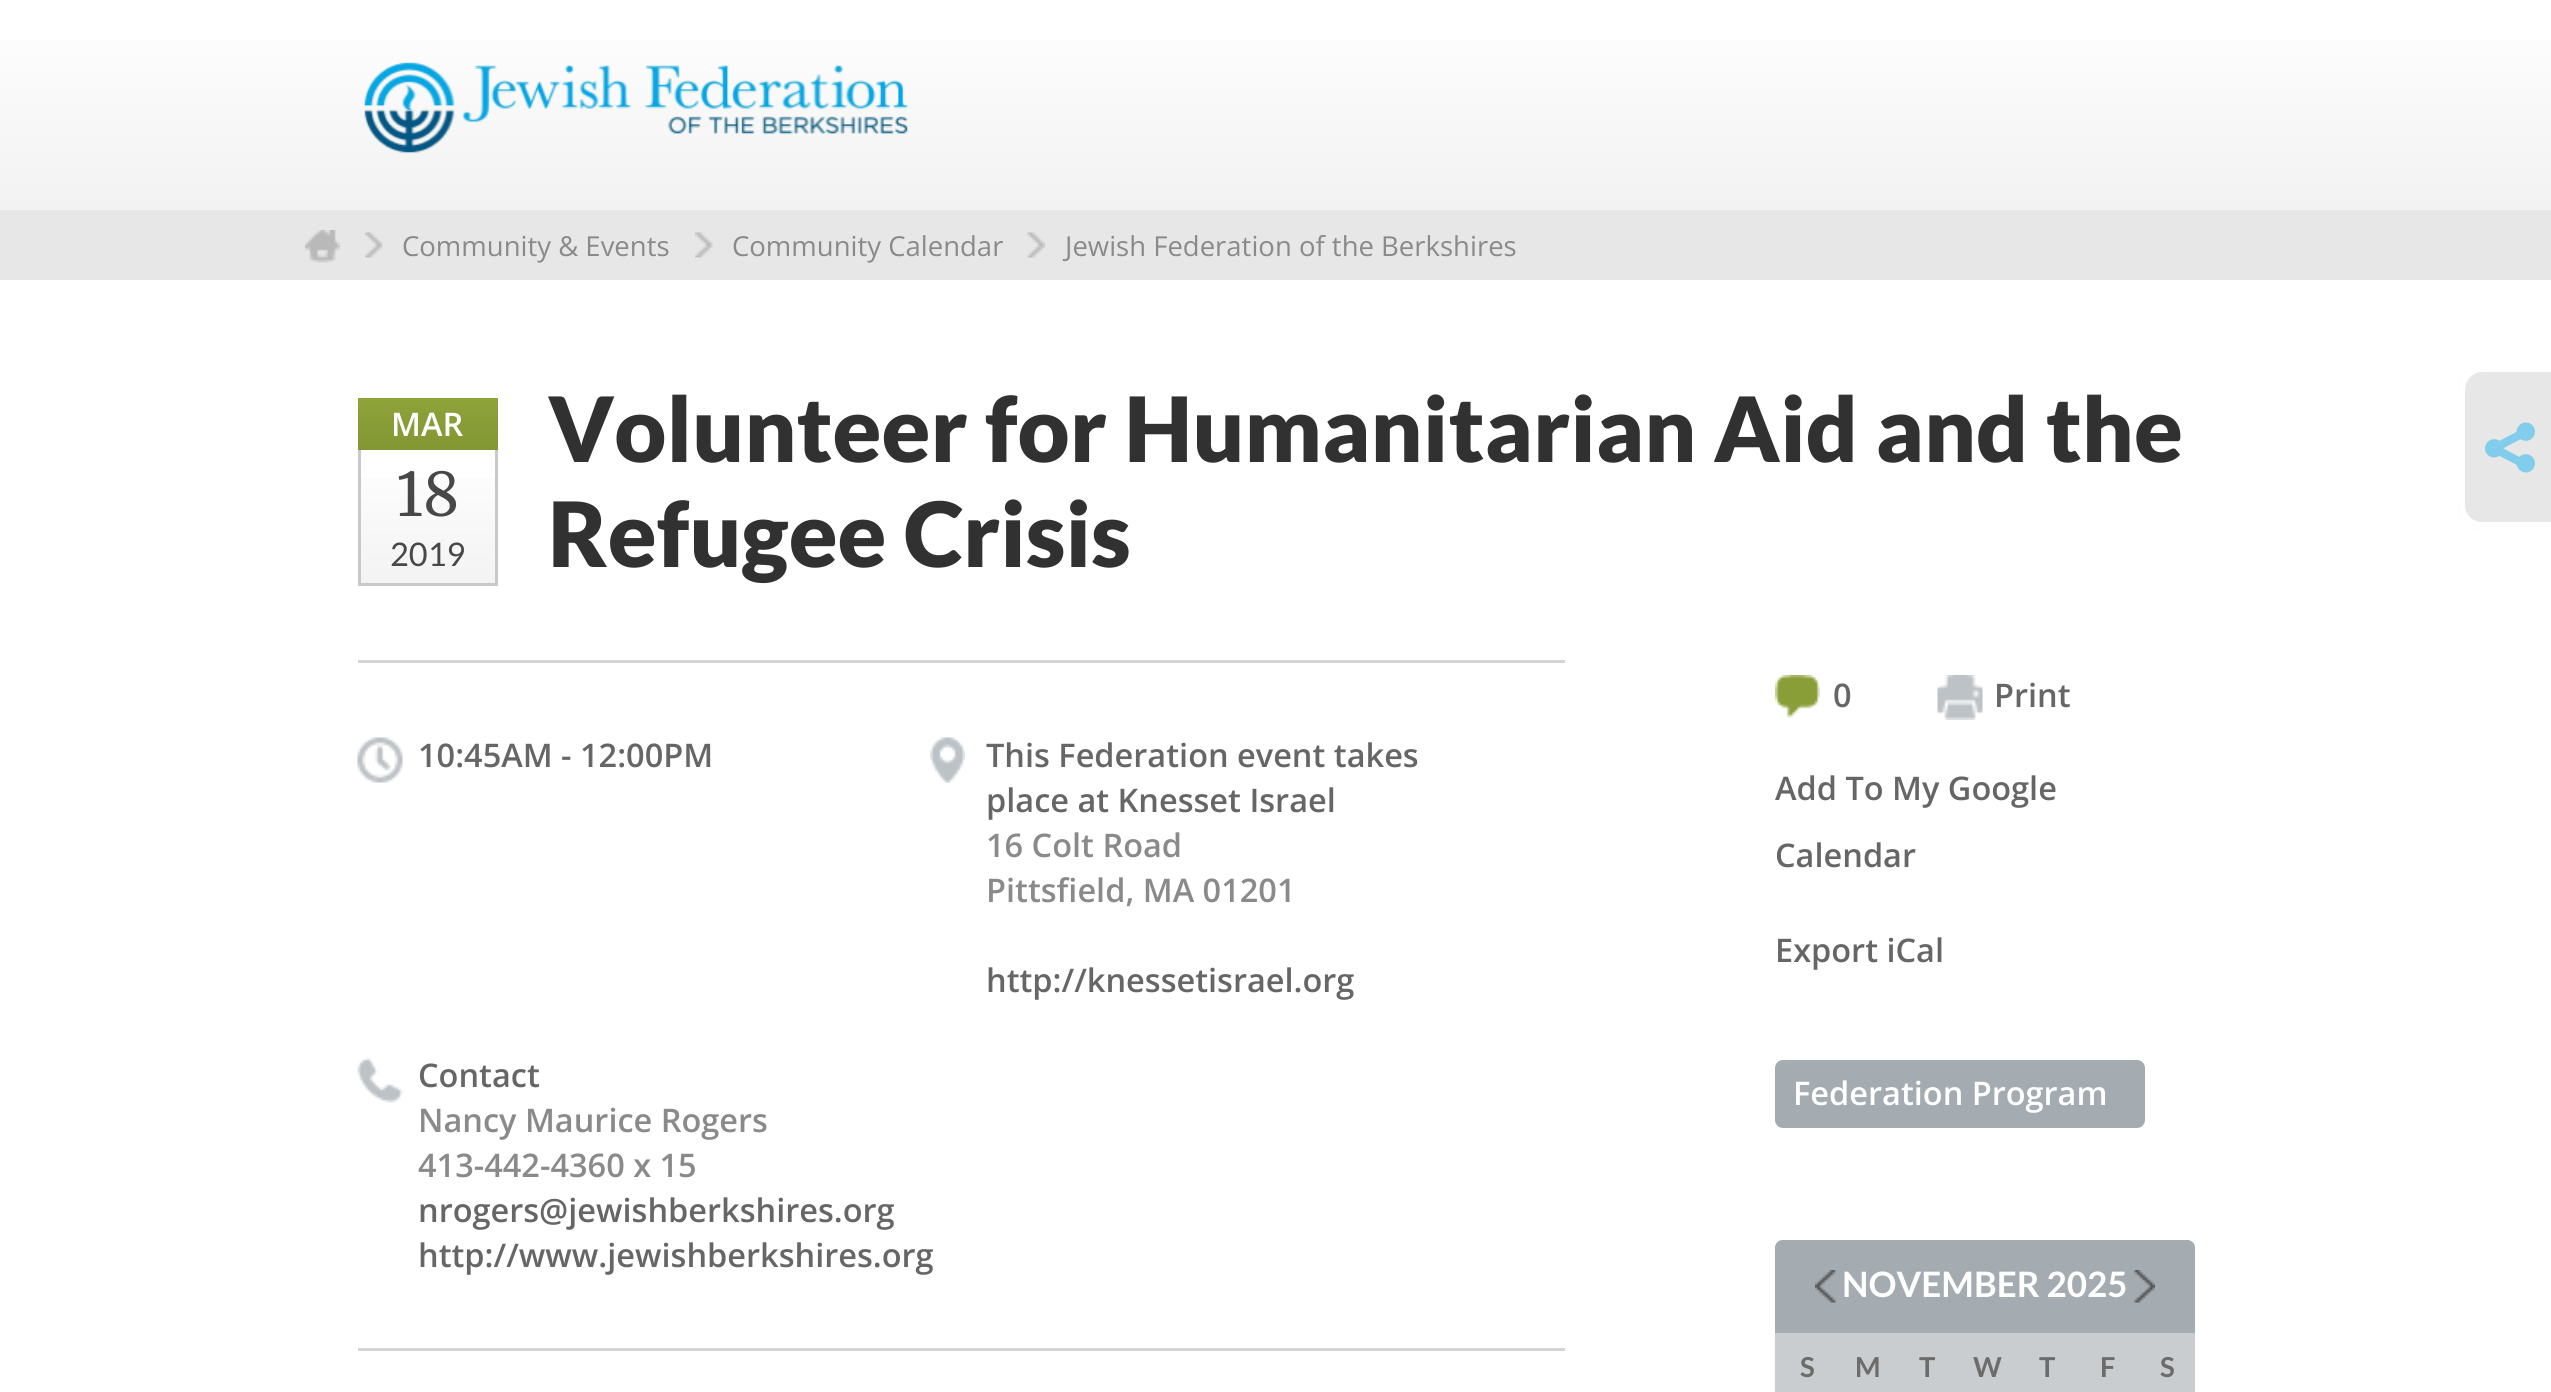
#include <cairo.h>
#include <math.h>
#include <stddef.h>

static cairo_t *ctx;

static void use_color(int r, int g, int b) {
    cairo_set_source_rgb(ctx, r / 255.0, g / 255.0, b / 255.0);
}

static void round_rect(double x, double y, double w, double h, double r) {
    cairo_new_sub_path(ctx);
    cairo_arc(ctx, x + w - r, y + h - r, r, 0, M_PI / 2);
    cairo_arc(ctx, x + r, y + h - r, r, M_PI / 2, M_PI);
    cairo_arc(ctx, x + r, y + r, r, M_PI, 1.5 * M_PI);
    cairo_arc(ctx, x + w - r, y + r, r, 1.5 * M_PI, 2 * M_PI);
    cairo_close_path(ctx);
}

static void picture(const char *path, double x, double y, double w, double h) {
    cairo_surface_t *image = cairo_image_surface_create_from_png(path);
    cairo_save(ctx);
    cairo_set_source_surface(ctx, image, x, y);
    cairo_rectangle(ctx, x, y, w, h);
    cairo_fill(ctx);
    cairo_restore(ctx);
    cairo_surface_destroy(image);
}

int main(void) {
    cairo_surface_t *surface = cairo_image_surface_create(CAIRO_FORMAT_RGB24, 2551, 1392);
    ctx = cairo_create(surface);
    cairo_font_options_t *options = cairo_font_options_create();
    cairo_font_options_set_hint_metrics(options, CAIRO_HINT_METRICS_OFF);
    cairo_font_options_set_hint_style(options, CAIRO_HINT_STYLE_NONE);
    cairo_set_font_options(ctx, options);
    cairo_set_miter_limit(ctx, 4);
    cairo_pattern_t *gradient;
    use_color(255, 255, 255);
    cairo_paint(ctx);
    gradient = cairo_pattern_create_linear(1276, 0, 1276, 210);
    cairo_pattern_add_color_stop_rgba(gradient, 0, 1, 1, 1, 1);
    cairo_pattern_add_color_stop_rgba(gradient, 1, 0.949, 0.949, 0.949, 1);
    cairo_set_source(ctx, gradient);
    cairo_pattern_destroy(gradient);
    cairo_rectangle(ctx, 0, 40, 2551, 170);
    cairo_fill(ctx);
    picture("img1.png", 364, 62, 545, 92);
    use_color(231, 231, 231);
    cairo_rectangle(ctx, 0, 210, 2551, 70);
    cairo_fill(ctx);
    picture("img2.png", 305, 230, 35, 33);
    picture("img3.png", 365, 232, 18, 26);
    cairo_select_font_face(ctx, "Open Sans", CAIRO_FONT_SLANT_NORMAL, CAIRO_FONT_WEIGHT_NORMAL);
    cairo_set_font_size(ctx, 27.5);
    use_color(138, 138, 138);
    cairo_move_to(ctx, 402, 256);
    cairo_show_text(ctx, "Community & Events");
    picture("img4.png", 695, 232, 18, 26);
    cairo_move_to(ctx, 732, 256);
    cairo_show_text(ctx, "Community Calendar");
    picture("img5.png", 1027, 232, 18, 26);
    cairo_move_to(ctx, 1065, 256);
    cairo_show_text(ctx, "Jewish Federation of the Berkshires");
    gradient = cairo_pattern_create_linear(428, 398, 428, 450);
    cairo_pattern_add_color_stop_rgba(gradient, 0, 0.557, 0.639, 0.227, 1);
    cairo_pattern_add_color_stop_rgba(gradient, 1, 0.51, 0.588, 0.2, 1);
    cairo_set_source(ctx, gradient);
    cairo_pattern_destroy(gradient);
    cairo_rectangle(ctx, 358, 398, 140, 52);
    cairo_fill(ctx);
    cairo_select_font_face(ctx, "Open Sans SemiBold", CAIRO_FONT_SLANT_NORMAL, CAIRO_FONT_WEIGHT_NORMAL);
    cairo_set_font_size(ctx, 32.5);
    use_color(255, 255, 255);
    cairo_move_to(ctx, 391, 436);
    cairo_show_text(ctx, "MAR");
    gradient = cairo_pattern_create_linear(428, 450, 428, 583);
    cairo_pattern_add_color_stop_rgba(gradient, 0, 1, 1, 1, 1);
    cairo_pattern_add_color_stop_rgba(gradient, 1, 0.953, 0.953, 0.953, 1);
    cairo_set_source(ctx, gradient);
    cairo_pattern_destroy(gradient);
    cairo_rectangle(ctx, 361, 478, 134, 105);
    cairo_fill(ctx);
    use_color(201, 201, 201);
    cairo_rectangle(ctx, 495, 450, 3, 135);
    cairo_fill(ctx);
    cairo_rectangle(ctx, 358, 583, 140, 3);
    cairo_fill(ctx);
    cairo_rectangle(ctx, 358, 450, 3, 135);
    cairo_fill(ctx);
    cairo_select_font_face(ctx, "Merriweather", CAIRO_FONT_SLANT_NORMAL, CAIRO_FONT_WEIGHT_NORMAL);
    cairo_set_font_size(ctx, 60);
    use_color(72, 72, 72);
    cairo_move_to(ctx, 396, 516);
    cairo_show_text(ctx, "18");
    cairo_select_font_face(ctx, "Lato", CAIRO_FONT_SLANT_NORMAL, CAIRO_FONT_WEIGHT_NORMAL);
    cairo_set_font_size(ctx, 32.5);
    cairo_move_to(ctx, 390, 566);
    cairo_show_text(ctx, "2019");
    cairo_select_font_face(ctx, "Lato Black", CAIRO_FONT_SLANT_NORMAL, CAIRO_FONT_WEIGHT_NORMAL);
    cairo_set_font_size(ctx, 90);
    use_color(49, 49, 49);
    cairo_move_to(ctx, 548, 462);
    cairo_show_text(ctx, "Volunteer for Humanitarian Aid and the");
    cairo_move_to(ctx, 548, 567);
    cairo_show_text(ctx, "Refugee Crisis");
    use_color(213, 213, 213);
    cairo_rectangle(ctx, 358, 660, 1207, 3);
    cairo_fill(ctx);
    picture("img6.png", 357, 737, 46, 46);
    cairo_select_font_face(ctx, "Open Sans SemiBold", CAIRO_FONT_SLANT_NORMAL, CAIRO_FONT_WEIGHT_NORMAL);
    cairo_set_font_size(ctx, 32.5);
    use_color(102, 102, 102);
    cairo_move_to(ctx, 418, 767);
    cairo_show_text(ctx, "10:45AM - 12:00PM");
    picture("img7.png", 930, 737, 35, 46);
    cairo_move_to(ctx, 986, 767);
    cairo_show_text(ctx, "This Federation event takes");
    cairo_move_to(ctx, 986, 812);
    cairo_show_text(ctx, "place at Knesset Israel");
    use_color(138, 138, 138);
    cairo_move_to(ctx, 986, 857);
    cairo_show_text(ctx, "16 Colt Road");
    cairo_move_to(ctx, 986, 902);
    cairo_show_text(ctx, "Pittsfield, MA 01201");
    use_color(102, 102, 102);
    cairo_move_to(ctx, 986, 992);
    cairo_show_text(ctx, "http://knessetisrael.org");
    picture("img8.png", 357, 1057, 46, 46);
    cairo_move_to(ctx, 418, 1087);
    cairo_show_text(ctx, "Contact");
    use_color(138, 138, 138);
    cairo_move_to(ctx, 418, 1132);
    cairo_show_text(ctx, "Nancy Maurice Rogers");
    cairo_move_to(ctx, 418, 1177);
    cairo_show_text(ctx, "413-442-4360 x 15");
    use_color(102, 102, 102);
    cairo_move_to(ctx, 418, 1222);
    cairo_show_text(ctx, "nrogers@jewishberkshires.org");
    cairo_move_to(ctx, 418, 1267);
    cairo_show_text(ctx, "http://www.jewishberkshires.org");
    use_color(213, 213, 213);
    cairo_rectangle(ctx, 358, 1348, 1207, 3);
    cairo_fill(ctx);
    picture("img9.png", 1775, 675, 45, 43);
    use_color(102, 102, 102);
    cairo_move_to(ctx, 1833, 707);
    cairo_show_text(ctx, "0");
    picture("img10.png", 1937, 675, 46, 45);
    cairo_move_to(ctx, 1994, 707);
    cairo_show_text(ctx, "Print");
    cairo_move_to(ctx, 1775, 800);
    cairo_show_text(ctx, "Add To My Google");
    cairo_move_to(ctx, 1775, 867);
    cairo_show_text(ctx, "Calendar");
    cairo_move_to(ctx, 1775, 962);
    cairo_show_text(ctx, "Export iCal");
    use_color(164, 172, 177);
    round_rect(1775, 1060, 370, 68, 8);
    cairo_fill(ctx);
    use_color(255, 255, 255);
    cairo_move_to(ctx, 1793, 1105);
    cairo_show_text(ctx, "Federation Program");
    use_color(202, 205, 207);
    round_rect(1775, 1240, 420, 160, 8);
    cairo_fill(ctx);
    use_color(164, 172, 177);
    cairo_new_path(ctx);
    cairo_move_to(ctx, 1783, 1240);
    cairo_line_to(ctx, 2187, 1240);
    cairo_curve_to(ctx, 2191.5, 1240, 2195, 1243.5, 2195, 1248);
    cairo_line_to(ctx, 2195, 1333);
    cairo_line_to(ctx, 1775, 1333);
    cairo_line_to(ctx, 1775, 1248);
    cairo_curve_to(ctx, 1775, 1243.5, 1778.5, 1240, 1783, 1240);
    cairo_close_path(ctx);
    cairo_fill(ctx);
    picture("img11.png", 1815, 1270, 22, 33);
    cairo_select_font_face(ctx, "Lato", CAIRO_FONT_SLANT_NORMAL, CAIRO_FONT_WEIGHT_BOLD);
    cairo_set_font_size(ctx, 35);
    use_color(255, 255, 255);
    cairo_move_to(ctx, 1842, 1297);
    cairo_show_text(ctx, "NOVEMBER 2025");
    picture("img12.png", 2132, 1270, 23, 33);
    cairo_set_font_size(ctx, 27.5);
    use_color(108, 108, 108);
    cairo_move_to(ctx, 1800, 1377);
    cairo_show_text(ctx, "S");
    cairo_move_to(ctx, 1855, 1377);
    cairo_show_text(ctx, "M");
    cairo_move_to(ctx, 1919, 1377);
    cairo_show_text(ctx, "T");
    cairo_move_to(ctx, 1973, 1377);
    cairo_show_text(ctx, "W");
    cairo_move_to(ctx, 2039, 1377);
    cairo_show_text(ctx, "T");
    cairo_move_to(ctx, 2100, 1377);
    cairo_show_text(ctx, "F");
    cairo_move_to(ctx, 2160, 1377);
    cairo_show_text(ctx, "S");
    use_color(231, 231, 231);
    cairo_new_path(ctx);
    cairo_move_to(ctx, 2483, 365);
    cairo_line_to(ctx, 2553, 365);
    cairo_line_to(ctx, 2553, 530);
    cairo_line_to(ctx, 2483, 530);
    cairo_curve_to(ctx, 2469, 530, 2458, 519, 2458, 505);
    cairo_line_to(ctx, 2458, 390);
    cairo_curve_to(ctx, 2458, 376, 2469, 365, 2483, 365);
    cairo_close_path(ctx);
    cairo_fill(ctx);
    use_color(255, 255, 255);
    cairo_set_fill_rule(ctx, CAIRO_FILL_RULE_EVEN_ODD);
    cairo_new_path(ctx);
    cairo_move_to(ctx, 2482, 365);
    cairo_line_to(ctx, 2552, 365);
    cairo_line_to(ctx, 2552, 530);
    cairo_line_to(ctx, 2482, 530);
    cairo_curve_to(ctx, 2469, 530, 2458, 519, 2458, 505);
    cairo_line_to(ctx, 2458, 390);
    cairo_curve_to(ctx, 2458, 376, 2469, 365, 2482, 365);
    cairo_close_path(ctx);
    cairo_move_to(ctx, 2482, 372);
    cairo_line_to(ctx, 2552, 372);
    cairo_line_to(ctx, 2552, 522);
    cairo_line_to(ctx, 2482, 522);
    cairo_curve_to(ctx, 2473, 522, 2465, 515, 2465, 505);
    cairo_line_to(ctx, 2465, 390);
    cairo_curve_to(ctx, 2465, 380, 2473, 372, 2482, 372);
    cairo_close_path(ctx);
    cairo_fill(ctx);
    picture("img13.png", 2485, 422, 50, 51);
    cairo_surface_write_to_png(surface, "result.png");
    cairo_font_options_destroy(options);
    cairo_destroy(ctx);
    cairo_surface_destroy(surface);
    return 0;
}
